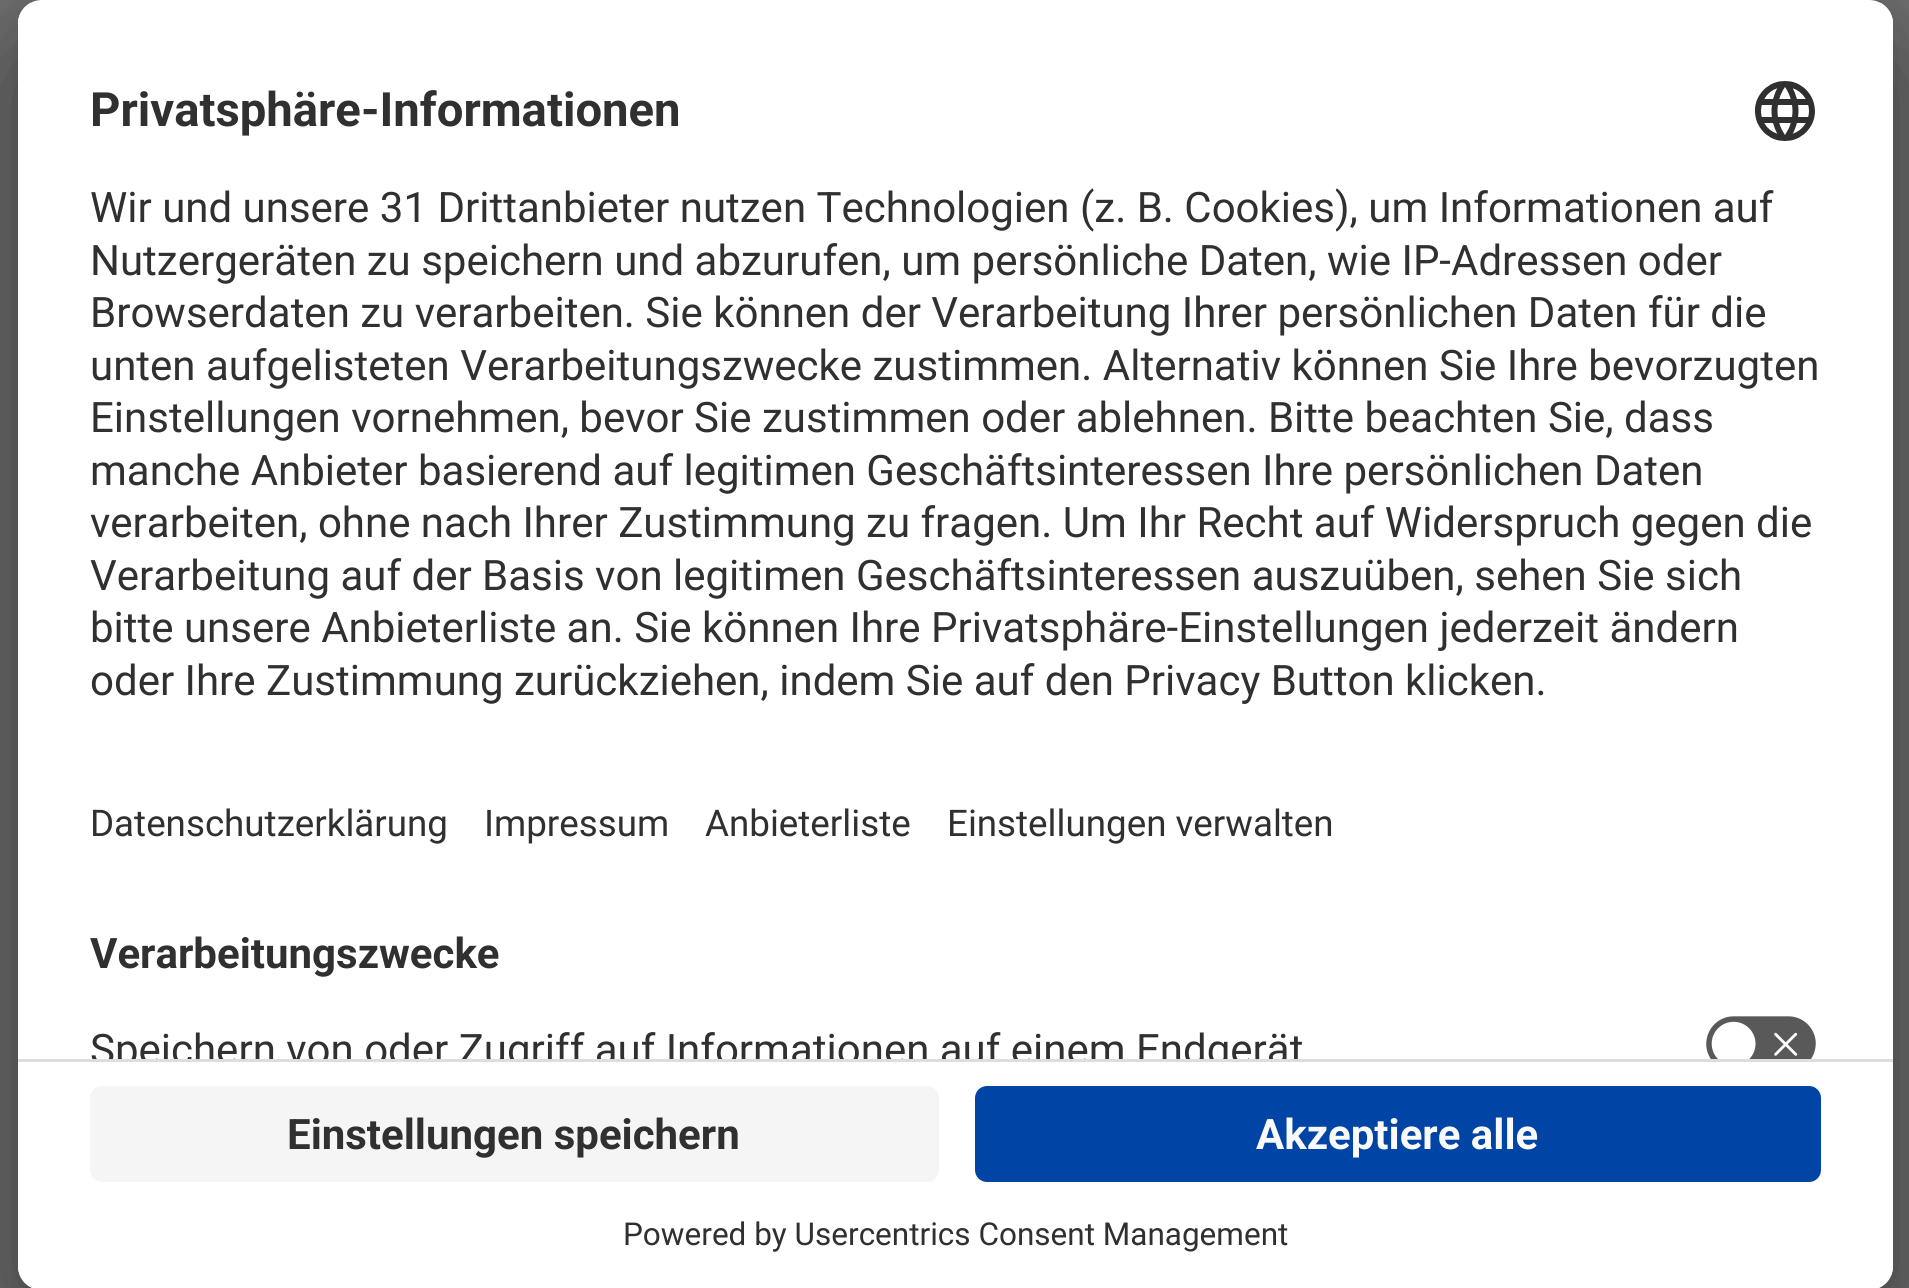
#include <cairo.h>
#include <math.h>
#include <stddef.h>

static cairo_t *ctx;

static void use_color(int r, int g, int b) {
    cairo_set_source_rgb(ctx, r / 255.0, g / 255.0, b / 255.0);
}

static void round_rect(double x, double y, double w, double h, double r) {
    cairo_new_sub_path(ctx);
    cairo_arc(ctx, x + w - r, y + h - r, r, 0, M_PI / 2);
    cairo_arc(ctx, x + r, y + h - r, r, M_PI / 2, M_PI);
    cairo_arc(ctx, x + r, y + r, r, M_PI, 1.5 * M_PI);
    cairo_arc(ctx, x + w - r, y + r, r, 1.5 * M_PI, 2 * M_PI);
    cairo_close_path(ctx);
}

static void shadow(double x, double y, double w, double h, double r, double blur, double alpha) {
    cairo_push_group_with_content(ctx, CAIRO_CONTENT_ALPHA);
    cairo_set_operator(ctx, CAIRO_OPERATOR_SOURCE);
    for (int i = 15; i >= -15 && fmin(w, h) + blur * i / 3 > 0; i -= 2) {
        double e = blur * i / 6;
        cairo_set_source_rgba(ctx, 0, 0, 0, alpha * erfc((i - 1) / 8.5) / 2);
        round_rect(x - e, y - e, w + 2 * e, h + 2 * e, fmax(0, fmin(r + e + blur * .6, fmin(w, h) / 2 + e)));
        cairo_fill(ctx);
    }
    cairo_pattern_t *soft = cairo_pop_group(ctx);
    cairo_mask(ctx, soft);
    cairo_pattern_destroy(soft);
}

static void picture(const char *path, double x, double y, double w, double h) {
    cairo_surface_t *image = cairo_image_surface_create_from_png(path);
    cairo_save(ctx);
    cairo_set_source_surface(ctx, image, x, y);
    cairo_rectangle(ctx, x, y, w, h);
    cairo_fill(ctx);
    cairo_restore(ctx);
    cairo_surface_destroy(image);
}

int main(void) {
    cairo_surface_t *surface = cairo_image_surface_create(CAIRO_FORMAT_RGB24, 1909, 1288);
    ctx = cairo_create(surface);
    cairo_font_options_t *options = cairo_font_options_create();
    cairo_font_options_set_hint_metrics(options, CAIRO_HINT_METRICS_OFF);
    cairo_font_options_set_hint_style(options, CAIRO_HINT_STYLE_NONE);
    cairo_set_font_options(ctx, options);
    cairo_set_miter_limit(ctx, 4);
    use_color(109, 109, 109);
    cairo_paint(ctx);
    use_color(0, 0, 0);
    shadow(18, 60, 1875, 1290, 24, 42, 0.3);
    shadow(18, 15, 1875, 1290, 24, 39, 0.22);
    use_color(255, 255, 255);
    round_rect(18, 0, 1875, 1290, 24);
    cairo_fill(ctx);
    cairo_save(ctx);
    round_rect(18, 0, 1875, 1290, 24);
    cairo_clip(ctx);
    cairo_new_path(ctx);
    cairo_move_to(ctx, 42, 0);
    cairo_line_to(ctx, 1869, 0);
    cairo_curve_to(ctx, 1882.5, 0, 1893, 10.5, 1893, 24);
    cairo_line_to(ctx, 1893, 1059);
    cairo_line_to(ctx, 18, 1059);
    cairo_line_to(ctx, 18, 24);
    cairo_curve_to(ctx, 18, 10.5, 28.5, 0, 42, 0);
    cairo_close_path(ctx);
    cairo_clip(ctx);
    cairo_rectangle(ctx, 18, 3, 1875, 1056);
    cairo_fill(ctx);
    cairo_rectangle(ctx, 18, 3, 1875, 891);
    cairo_fill(ctx);
    cairo_restore(ctx);
    cairo_select_font_face(ctx, "Roboto", CAIRO_FONT_SLANT_NORMAL, CAIRO_FONT_WEIGHT_BOLD);
    cairo_set_font_size(ctx, 47.25);
    use_color(48, 48, 48);
    cairo_move_to(ctx, 90, 126);
    cairo_show_text(ctx, "Privatsphäre-Informationen");
    picture("img1.png", 1755, 81, 60, 60);
    cairo_select_font_face(ctx, "Roboto", CAIRO_FONT_SLANT_NORMAL, CAIRO_FONT_WEIGHT_NORMAL);
    cairo_set_font_size(ctx, 42);
    cairo_move_to(ctx, 90, 222);
    cairo_show_text(ctx, "Wir und unsere 31 Drittanbieter nutzen Technologien (z. B. Cookies), um Informationen auf");
    cairo_move_to(ctx, 90, 275);
    cairo_show_text(ctx, "Nutzergeräten zu speichern und abzurufen, um persönliche Daten, wie IP-Adressen oder");
    cairo_move_to(ctx, 90, 327);
    cairo_show_text(ctx, "Browserdaten zu verarbeiten. Sie können der Verarbeitung Ihrer persönlichen Daten für die");
    cairo_move_to(ctx, 90, 380);
    cairo_show_text(ctx, "unten aufgelisteten Verarbeitungszwecke zustimmen. Alternativ können Sie Ihre bevorzugten");
    cairo_move_to(ctx, 90, 432);
    cairo_show_text(ctx, "Einstellungen vornehmen, bevor Sie zustimmen oder ablehnen. Bitte beachten Sie, dass");
    cairo_move_to(ctx, 90, 485);
    cairo_show_text(ctx, "manche Anbieter basierend auf legitimen Geschäftsinteressen Ihre persönlichen Daten");
    cairo_move_to(ctx, 90, 537);
    cairo_show_text(ctx, "verarbeiten, ohne nach Ihrer Zustimmung zu fragen. Um Ihr Recht auf Widerspruch gegen die");
    cairo_move_to(ctx, 90, 590);
    cairo_show_text(ctx, "Verarbeitung auf der Basis von legitimen Geschäftsinteressen auszuüben, sehen Sie sich");
    cairo_move_to(ctx, 90, 642);
    cairo_show_text(ctx, "bitte unsere Anbieterliste an. Sie können Ihre Privatsphäre-Einstellungen jederzeit ändern");
    cairo_move_to(ctx, 90, 695);
    cairo_show_text(ctx, "oder Ihre Zustimmung zurückziehen, indem Sie auf den Privacy Button klicken.");
    cairo_set_font_size(ctx, 36.75);
    cairo_move_to(ctx, 90, 836);
    cairo_show_text(ctx, "Datenschutzerklärung");
    cairo_move_to(ctx, 484, 836);
    cairo_show_text(ctx, "Impressum");
    cairo_move_to(ctx, 705, 836);
    cairo_show_text(ctx, "Anbieterliste");
    cairo_move_to(ctx, 947, 836);
    cairo_show_text(ctx, "Einstellungen verwalten");
    cairo_select_font_face(ctx, "Roboto", CAIRO_FONT_SLANT_NORMAL, CAIRO_FONT_WEIGHT_BOLD);
    cairo_set_font_size(ctx, 42);
    cairo_move_to(ctx, 90, 968);
    cairo_show_text(ctx, "Verarbeitungszwecke");
    cairo_save(ctx);
    cairo_new_path(ctx);
    cairo_move_to(ctx, 42, 0);
    cairo_line_to(ctx, 1869, 0);
    cairo_curve_to(ctx, 1882.5, 0, 1893, 10.5, 1893, 24);
    cairo_line_to(ctx, 1893, 1059);
    cairo_line_to(ctx, 18, 1059);
    cairo_line_to(ctx, 18, 24);
    cairo_curve_to(ctx, 18, 10.5, 28.5, 0, 42, 0);
    cairo_close_path(ctx);
    cairo_clip(ctx);
    cairo_select_font_face(ctx, "Roboto", CAIRO_FONT_SLANT_NORMAL, CAIRO_FONT_WEIGHT_NORMAL);
    cairo_move_to(ctx, 90, 1064);
    cairo_show_text(ctx, "Speichern von oder Zugriff auf Informationen auf einem Endgerät");
    cairo_restore(ctx);
    picture("img2.png", 1706, 1016, 110, 43);
    use_color(255, 255, 255);
    cairo_new_path(ctx);
    cairo_move_to(ctx, 18, 1059);
    cairo_line_to(ctx, 1893, 1059);
    cairo_line_to(ctx, 1893, 1266);
    cairo_curve_to(ctx, 1893, 1279.5, 1882.5, 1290, 1869, 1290);
    cairo_line_to(ctx, 42, 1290);
    cairo_curve_to(ctx, 28.5, 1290, 18, 1279.5, 18, 1266);
    cairo_close_path(ctx);
    cairo_fill(ctx);
    use_color(221, 221, 221);
    cairo_rectangle(ctx, 18, 1059, 1875, 3);
    cairo_fill(ctx);
    use_color(245, 245, 245);
    round_rect(90, 1086, 849, 96, 12);
    cairo_fill(ctx);
    use_color(48, 48, 48);
    cairo_move_to(ctx, 287, 1149);
    cairo_show_text(ctx, "Einstellungen speichern");
    use_color(0, 69, 165);
    round_rect(975, 1086, 846, 96, 12);
    cairo_fill(ctx);
    use_color(250, 250, 250);
    cairo_move_to(ctx, 1256, 1149);
    cairo_show_text(ctx, "Akzeptiere alle");
    cairo_select_font_face(ctx, "Roboto", CAIRO_FONT_SLANT_NORMAL, CAIRO_FONT_WEIGHT_NORMAL);
    cairo_set_font_size(ctx, 31.5);
    use_color(48, 48, 48);
    cairo_move_to(ctx, 623, 1245);
    cairo_show_text(ctx, "Powered by Usercentrics Consent Management");
    cairo_surface_write_to_png(surface, "result.png");
    cairo_font_options_destroy(options);
    cairo_destroy(ctx);
    cairo_surface_destroy(surface);
    return 0;
}
